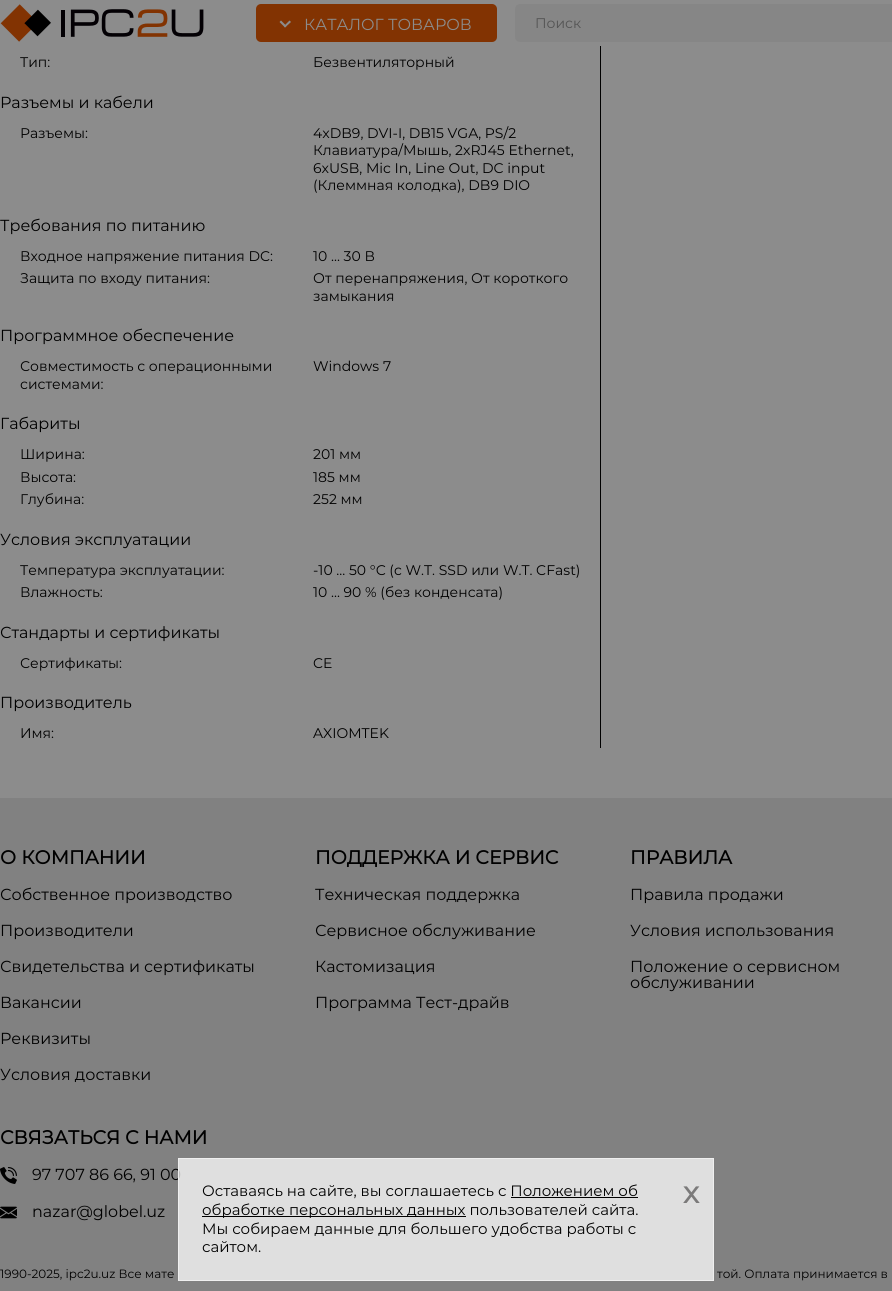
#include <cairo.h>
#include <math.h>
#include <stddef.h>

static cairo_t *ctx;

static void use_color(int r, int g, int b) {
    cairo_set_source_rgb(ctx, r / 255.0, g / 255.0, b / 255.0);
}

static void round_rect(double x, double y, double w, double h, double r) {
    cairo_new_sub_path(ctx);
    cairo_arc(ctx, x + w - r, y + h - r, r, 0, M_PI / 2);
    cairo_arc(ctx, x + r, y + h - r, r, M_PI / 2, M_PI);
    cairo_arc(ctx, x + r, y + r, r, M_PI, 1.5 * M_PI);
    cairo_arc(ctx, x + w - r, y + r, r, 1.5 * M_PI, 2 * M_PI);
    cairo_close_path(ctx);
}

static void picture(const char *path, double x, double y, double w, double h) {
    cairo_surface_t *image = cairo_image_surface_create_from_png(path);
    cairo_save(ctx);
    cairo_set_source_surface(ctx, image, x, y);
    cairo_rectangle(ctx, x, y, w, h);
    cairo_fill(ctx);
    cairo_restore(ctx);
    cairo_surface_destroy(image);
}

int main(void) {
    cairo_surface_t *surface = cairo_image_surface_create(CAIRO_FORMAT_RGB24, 892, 1291);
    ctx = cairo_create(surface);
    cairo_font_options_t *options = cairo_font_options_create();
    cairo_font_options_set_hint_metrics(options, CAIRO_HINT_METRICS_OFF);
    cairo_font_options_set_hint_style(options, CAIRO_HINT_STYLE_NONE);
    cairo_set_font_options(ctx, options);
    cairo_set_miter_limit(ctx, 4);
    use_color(140, 140, 140);
    cairo_paint(ctx);
    picture("img1.png", 0, 4, 204, 38);
    use_color(130, 51, 2);
    round_rect(256, 4, 241, 38, 5);
    cairo_fill(ctx);
    use_color(140, 140, 140);
    cairo_new_path(ctx);
    cairo_move_to(ctx, 289.5, 20.5);
    cairo_line_to(ctx, 291, 22);
    cairo_line_to(ctx, 285, 27.5);
    cairo_line_to(ctx, 284, 26);
    cairo_close_path(ctx);
    cairo_fill(ctx);
    cairo_new_path(ctx);
    cairo_move_to(ctx, 281, 20.5);
    cairo_line_to(ctx, 286.5, 26);
    cairo_line_to(ctx, 285, 27.5);
    cairo_line_to(ctx, 279.5, 22);
    cairo_close_path(ctx);
    cairo_fill(ctx);
    cairo_select_font_face(ctx, "Montserrat", CAIRO_FONT_SLANT_NORMAL, CAIRO_FONT_WEIGHT_NORMAL);
    cairo_set_font_size(ctx, 16);
    cairo_move_to(ctx, 304, 30);
    cairo_show_text(ctx, "КАТАЛОГ ТОВАРОВ");
    use_color(134, 134, 134);
    round_rect(515, 4, 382, 38, 5);
    cairo_fill(ctx);
    cairo_set_font_size(ctx, 14);
    use_color(84, 84, 84);
    cairo_move_to(ctx, 535, 28);
    cairo_show_text(ctx, "Поиск");
    use_color(0, 0, 0);
    cairo_move_to(ctx, 20, 67);
    cairo_show_text(ctx, "Тип:");
    cairo_move_to(ctx, 313, 67);
    cairo_show_text(ctx, "Безвентиляторный");
    cairo_set_font_size(ctx, 16);
    cairo_move_to(ctx, 0, 108);
    cairo_show_text(ctx, "Разъемы и кабели");
    cairo_set_font_size(ctx, 14);
    cairo_move_to(ctx, 20, 138);
    cairo_show_text(ctx, "Разъемы:");
    cairo_move_to(ctx, 313, 138);
    cairo_show_text(ctx, "4xDB9, DVI-I, DB15 VGA, PS/2");
    cairo_move_to(ctx, 313, 155);
    cairo_show_text(ctx, "Клавиатура/Мышь, 2xRJ45 Ethernet,");
    cairo_move_to(ctx, 313, 173);
    cairo_show_text(ctx, "6xUSB, Mic In, Line Out, DC input");
    cairo_move_to(ctx, 313, 190);
    cairo_show_text(ctx, "(Клеммная колодка), DB9 DIO");
    cairo_set_font_size(ctx, 16);
    cairo_move_to(ctx, 0, 231);
    cairo_show_text(ctx, "Требования по питанию");
    cairo_set_font_size(ctx, 14);
    cairo_move_to(ctx, 20, 261);
    cairo_show_text(ctx, "Входное напряжение питания DC:");
    cairo_move_to(ctx, 313, 261);
    cairo_show_text(ctx, "10 ... 30 В");
    cairo_move_to(ctx, 20, 283);
    cairo_show_text(ctx, "Защита по входу питания:");
    cairo_move_to(ctx, 313, 283);
    cairo_show_text(ctx, "От перенапряжения, От короткого");
    cairo_move_to(ctx, 313, 301);
    cairo_show_text(ctx, "замыкания");
    cairo_set_font_size(ctx, 16);
    cairo_move_to(ctx, 0, 341);
    cairo_show_text(ctx, "Программное обеспечение");
    cairo_set_font_size(ctx, 14);
    cairo_move_to(ctx, 20, 371);
    cairo_show_text(ctx, "Совместимость с операционными");
    cairo_move_to(ctx, 20, 389);
    cairo_show_text(ctx, "системами:");
    cairo_move_to(ctx, 313, 371);
    cairo_show_text(ctx, "Windows 7");
    cairo_set_font_size(ctx, 16);
    cairo_move_to(ctx, 0, 429);
    cairo_show_text(ctx, "Габариты");
    cairo_set_font_size(ctx, 14);
    cairo_move_to(ctx, 20, 459);
    cairo_show_text(ctx, "Ширина:");
    cairo_move_to(ctx, 313, 459);
    cairo_show_text(ctx, "201 мм");
    cairo_move_to(ctx, 20, 482);
    cairo_show_text(ctx, "Высота:");
    cairo_move_to(ctx, 313, 482);
    cairo_show_text(ctx, "185 мм");
    cairo_move_to(ctx, 20, 504);
    cairo_show_text(ctx, "Глубина:");
    cairo_move_to(ctx, 313, 504);
    cairo_show_text(ctx, "252 мм");
    cairo_set_font_size(ctx, 16);
    cairo_move_to(ctx, 0, 545);
    cairo_show_text(ctx, "Условия эксплуатации");
    cairo_set_font_size(ctx, 14);
    cairo_move_to(ctx, 20, 575);
    cairo_show_text(ctx, "Температура эксплуатации:");
    cairo_move_to(ctx, 313, 575);
    cairo_show_text(ctx, "-10 ... 50 °С (c W.T. SSD или W.T. CFast)");
    cairo_move_to(ctx, 20, 597);
    cairo_show_text(ctx, "Влажность:");
    cairo_move_to(ctx, 313, 597);
    cairo_show_text(ctx, "10 ... 90 % (без конденсата)");
    cairo_set_font_size(ctx, 16);
    cairo_move_to(ctx, 0, 638);
    cairo_show_text(ctx, "Стандарты и сертификаты");
    cairo_set_font_size(ctx, 14);
    cairo_move_to(ctx, 20, 668);
    cairo_show_text(ctx, "Сертификаты:");
    cairo_move_to(ctx, 313, 668);
    cairo_show_text(ctx, "CE");
    cairo_set_font_size(ctx, 16);
    cairo_move_to(ctx, 0, 708);
    cairo_show_text(ctx, "Производитель");
    cairo_set_font_size(ctx, 14);
    cairo_move_to(ctx, 20, 738);
    cairo_show_text(ctx, "Имя:");
    cairo_move_to(ctx, 313, 738);
    cairo_show_text(ctx, "AXIOMTEK");
    cairo_rectangle(ctx, 600, 46, 1, 702);
    cairo_fill(ctx);
    use_color(129, 129, 129);
    cairo_rectangle(ctx, 0, 798, 892, 493);
    cairo_fill(ctx);
    cairo_select_font_face(ctx, "Montserrat", CAIRO_FONT_SLANT_NORMAL, CAIRO_FONT_WEIGHT_BOLD);
    cairo_set_font_size(ctx, 19);
    use_color(0, 0, 0);
    cairo_move_to(ctx, 0, 864);
    cairo_show_text(ctx, "О КОМПАНИИ");
    cairo_select_font_face(ctx, "Montserrat", CAIRO_FONT_SLANT_NORMAL, CAIRO_FONT_WEIGHT_NORMAL);
    cairo_set_font_size(ctx, 16);
    cairo_move_to(ctx, 0, 900);
    cairo_show_text(ctx, "Собственное производство");
    cairo_move_to(ctx, 0, 936);
    cairo_show_text(ctx, "Производители");
    cairo_move_to(ctx, 0, 972);
    cairo_show_text(ctx, "Свидетельства и сертификаты");
    cairo_move_to(ctx, 0, 1008);
    cairo_show_text(ctx, "Вакансии");
    cairo_move_to(ctx, 0, 1044);
    cairo_show_text(ctx, "Реквизиты");
    cairo_move_to(ctx, 0, 1080);
    cairo_show_text(ctx, "Условия доставки");
    cairo_select_font_face(ctx, "Montserrat", CAIRO_FONT_SLANT_NORMAL, CAIRO_FONT_WEIGHT_BOLD);
    cairo_set_font_size(ctx, 19);
    cairo_move_to(ctx, 315, 864);
    cairo_show_text(ctx, "ПОДДЕРЖКА И СЕРВИС");
    cairo_select_font_face(ctx, "Montserrat", CAIRO_FONT_SLANT_NORMAL, CAIRO_FONT_WEIGHT_NORMAL);
    cairo_set_font_size(ctx, 16);
    cairo_move_to(ctx, 315, 900);
    cairo_show_text(ctx, "Техническая поддержка");
    cairo_move_to(ctx, 315, 936);
    cairo_show_text(ctx, "Сервисное обслуживание");
    cairo_move_to(ctx, 315, 972);
    cairo_show_text(ctx, "Кастомизация");
    cairo_move_to(ctx, 315, 1008);
    cairo_show_text(ctx, "Программа Тест-драйв");
    cairo_select_font_face(ctx, "Montserrat", CAIRO_FONT_SLANT_NORMAL, CAIRO_FONT_WEIGHT_BOLD);
    cairo_set_font_size(ctx, 19);
    cairo_move_to(ctx, 630, 864);
    cairo_show_text(ctx, "ПРАВИЛА");
    cairo_select_font_face(ctx, "Montserrat", CAIRO_FONT_SLANT_NORMAL, CAIRO_FONT_WEIGHT_NORMAL);
    cairo_set_font_size(ctx, 16);
    cairo_move_to(ctx, 630, 900);
    cairo_show_text(ctx, "Правила продажи");
    cairo_move_to(ctx, 630, 936);
    cairo_show_text(ctx, "Условия использования");
    cairo_move_to(ctx, 630, 972);
    cairo_show_text(ctx, "Положение о сервисном");
    cairo_move_to(ctx, 630, 988);
    cairo_show_text(ctx, "обслуживании");
    cairo_select_font_face(ctx, "Montserrat", CAIRO_FONT_SLANT_NORMAL, CAIRO_FONT_WEIGHT_BOLD);
    cairo_set_font_size(ctx, 19);
    cairo_move_to(ctx, 0, 1144);
    cairo_show_text(ctx, "СВЯЗАТЬСЯ С НАМИ");
    picture("img2.png", 0, 1167, 17, 17);
    cairo_select_font_face(ctx, "Montserrat", CAIRO_FONT_SLANT_NORMAL, CAIRO_FONT_WEIGHT_NORMAL);
    cairo_set_font_size(ctx, 16);
    cairo_move_to(ctx, 32, 1180);
    cairo_show_text(ctx, "97 707 86 66, 91 00");
    picture("img3.png", 0, 1206, 17, 13);
    cairo_move_to(ctx, 32, 1217);
    cairo_show_text(ctx, "nazar@globel.uz");
    cairo_set_font_size(ctx, 12);
    cairo_move_to(ctx, 0, 1278);
    cairo_show_text(ctx, "1990-2025, ipc2u.uz Все мате");
    cairo_move_to(ctx, 717, 1278);
    cairo_show_text(ctx, "той. Оплата принимается в");
    cairo_set_source_rgba(ctx, 1, 1, 1, 0.75);
    cairo_rectangle(ctx, 178.5, 1158.5, 535, 122);
    cairo_fill_preserve(ctx);
    use_color(239, 239, 239);
    cairo_set_line_width(ctx, 1);
    cairo_stroke(ctx);
    cairo_set_font_size(ctx, 15);
    use_color(0, 0, 0);
    cairo_move_to(ctx, 202, 1196);
    cairo_show_text(ctx, "Оставаясь на сайте, вы соглашаетесь с Положением об");
    cairo_rectangle(ctx, 202, 1216, 264, 1);
    cairo_fill(ctx);
    cairo_move_to(ctx, 202, 1215);
    cairo_show_text(ctx, "обработке персональных данных пользователей сайта.");
    cairo_rectangle(ctx, 511, 1197, 127, 1);
    cairo_fill(ctx);
    cairo_move_to(ctx, 202, 1234);
    cairo_show_text(ctx, "Мы собираем данные для большего удобства работы с");
    cairo_move_to(ctx, 202, 1252);
    cairo_show_text(ctx, "сайтом.");
    cairo_select_font_face(ctx, "Montserrat", CAIRO_FONT_SLANT_NORMAL, CAIRO_FONT_WEIGHT_BOLD);
    cairo_set_font_size(ctx, 30);
    use_color(123, 122, 122);
    cairo_move_to(ctx, 683, 1203);
    cairo_show_text(ctx, "x");
    cairo_surface_write_to_png(surface, "result.png");
    cairo_font_options_destroy(options);
    cairo_destroy(ctx);
    cairo_surface_destroy(surface);
    return 0;
}
